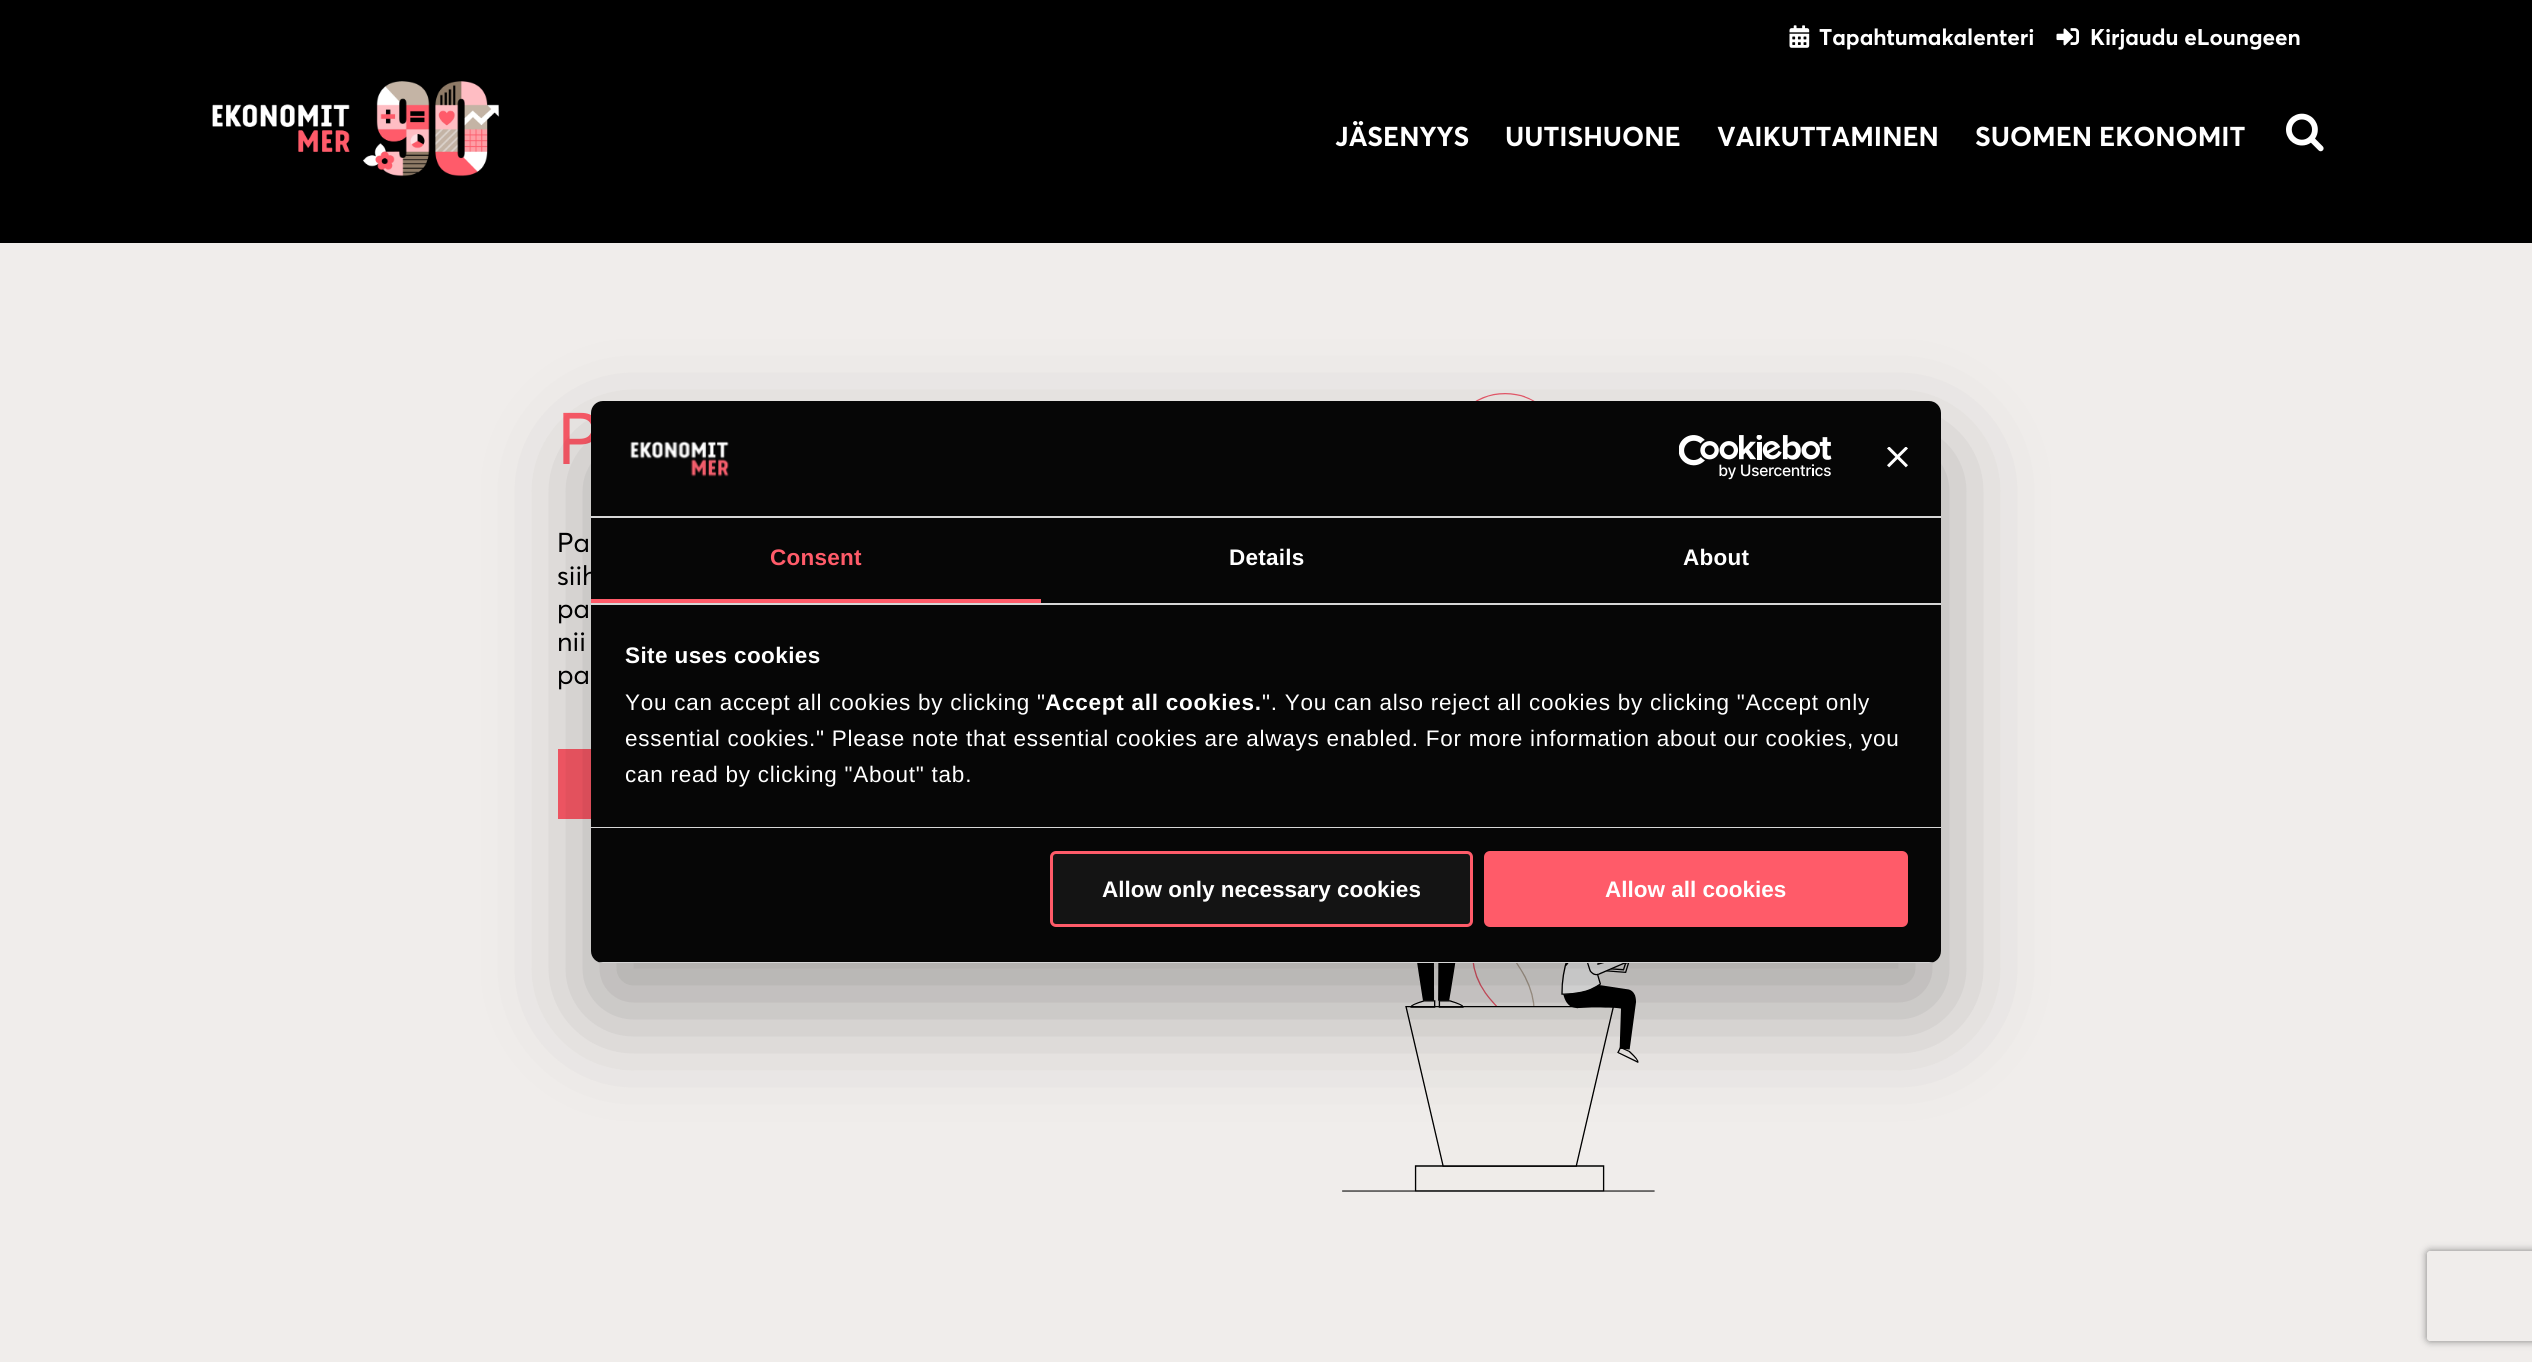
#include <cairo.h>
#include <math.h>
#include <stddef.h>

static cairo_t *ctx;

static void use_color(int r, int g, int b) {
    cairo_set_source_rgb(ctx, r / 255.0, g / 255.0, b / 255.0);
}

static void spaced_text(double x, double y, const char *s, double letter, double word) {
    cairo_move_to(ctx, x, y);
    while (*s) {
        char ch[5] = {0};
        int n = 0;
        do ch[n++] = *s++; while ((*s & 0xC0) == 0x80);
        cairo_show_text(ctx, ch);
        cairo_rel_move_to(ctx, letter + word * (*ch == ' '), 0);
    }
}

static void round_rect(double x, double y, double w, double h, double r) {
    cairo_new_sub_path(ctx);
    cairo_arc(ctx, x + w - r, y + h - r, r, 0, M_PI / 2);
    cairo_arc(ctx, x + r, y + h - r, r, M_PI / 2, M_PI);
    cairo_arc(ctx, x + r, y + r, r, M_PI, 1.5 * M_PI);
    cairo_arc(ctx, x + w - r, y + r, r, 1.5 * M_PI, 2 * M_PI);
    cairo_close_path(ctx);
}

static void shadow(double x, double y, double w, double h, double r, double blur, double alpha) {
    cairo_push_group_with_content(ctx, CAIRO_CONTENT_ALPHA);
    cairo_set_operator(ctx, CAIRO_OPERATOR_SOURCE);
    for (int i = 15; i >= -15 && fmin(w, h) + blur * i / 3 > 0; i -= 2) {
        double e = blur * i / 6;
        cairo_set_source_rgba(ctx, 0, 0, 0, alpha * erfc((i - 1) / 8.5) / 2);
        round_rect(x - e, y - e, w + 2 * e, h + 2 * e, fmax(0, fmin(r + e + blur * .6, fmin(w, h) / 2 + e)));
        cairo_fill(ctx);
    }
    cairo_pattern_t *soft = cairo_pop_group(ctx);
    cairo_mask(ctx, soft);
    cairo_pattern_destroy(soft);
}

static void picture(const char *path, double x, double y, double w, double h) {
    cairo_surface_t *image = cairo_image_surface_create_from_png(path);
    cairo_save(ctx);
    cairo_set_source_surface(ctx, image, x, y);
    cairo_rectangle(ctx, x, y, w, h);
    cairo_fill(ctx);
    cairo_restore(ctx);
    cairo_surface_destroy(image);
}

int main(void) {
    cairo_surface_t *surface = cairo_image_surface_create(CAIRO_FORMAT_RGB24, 2532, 1362);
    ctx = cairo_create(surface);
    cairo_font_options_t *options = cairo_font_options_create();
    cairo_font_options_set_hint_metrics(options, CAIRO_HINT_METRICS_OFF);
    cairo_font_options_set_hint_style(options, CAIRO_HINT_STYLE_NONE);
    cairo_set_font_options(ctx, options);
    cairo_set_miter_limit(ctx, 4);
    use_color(0, 0, 0);
    cairo_paint(ctx);
    picture("img1.png", 1789, 25, 21, 23);
    cairo_select_font_face(ctx, "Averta", CAIRO_FONT_SLANT_NORMAL, CAIRO_FONT_WEIGHT_BOLD);
    cairo_set_font_size(ctx, 22.5);
    use_color(255, 255, 255);
    cairo_move_to(ctx, 1819, 45);
    cairo_show_text(ctx, "Tapahtumakalenteri");
    picture("img2.png", 2056, 28, 23, 18);
    cairo_move_to(ctx, 2090, 45);
    cairo_show_text(ctx, "Kirjaudu eLoungeen");
    picture("img3.png", 212, 81, 288, 96);
    cairo_set_font_size(ctx, 27);
    cairo_move_to(ctx, 1335, 146);
    cairo_show_text(ctx, "JÄSENYYS");
    cairo_move_to(ctx, 1505, 146);
    cairo_show_text(ctx, "UUTISHUONE");
    cairo_move_to(ctx, 1717, 146);
    cairo_show_text(ctx, "VAIKUTTAMINEN");
    cairo_move_to(ctx, 1975, 146);
    cairo_show_text(ctx, "SUOMEN EKONOMIT");
    picture("img4.png", 2286, 113, 38, 39);
    use_color(240, 237, 235);
    cairo_rectangle(ctx, 0, 243, 2532, 1119);
    cairo_fill(ctx);
    cairo_select_font_face(ctx, "Averta", CAIRO_FONT_SLANT_NORMAL, CAIRO_FONT_WEIGHT_NORMAL);
    cairo_set_font_size(ctx, 72);
    use_color(255, 91, 105);
    cairo_move_to(ctx, 557, 464);
    cairo_show_text(ctx, "P");
    cairo_set_font_size(ctx, 27);
    use_color(0, 0, 0);
    cairo_move_to(ctx, 557, 552);
    cairo_show_text(ctx, "Pa");
    cairo_move_to(ctx, 557, 585);
    cairo_show_text(ctx, "siih");
    cairo_move_to(ctx, 557, 618);
    cairo_show_text(ctx, "pa");
    cairo_move_to(ctx, 557, 651);
    cairo_show_text(ctx, "nii");
    cairo_move_to(ctx, 557, 684);
    cairo_show_text(ctx, "pa");
    use_color(255, 91, 105);
    cairo_rectangle(ctx, 558, 749, 33, 70);
    cairo_fill(ctx);
    picture("img5.png", 1342, 393, 313, 799);
    use_color(0, 0, 0);
    shadow(591, 449, 1350, 562, 12, 51, 0.3);
    use_color(6, 6, 6);
    round_rect(591, 401, 1350, 562, 12);
    cairo_fill(ctx);
    use_color(214, 214, 214);
    cairo_rectangle(ctx, 591, 516, 1350, 2);
    cairo_fill(ctx);
    picture("img6.png", 630, 441, 99, 36);
    picture("img7.png", 1679, 435, 153, 45);
    picture("img8.png", 1887, 447, 21, 21);
    cairo_rectangle(ctx, 591, 603, 1350, 2);
    cairo_fill(ctx);
    use_color(255, 91, 105);
    cairo_rectangle(ctx, 591, 599, 450, 4);
    cairo_fill(ctx);
    cairo_select_font_face(ctx, "Liberation Sans", CAIRO_FONT_SLANT_NORMAL, CAIRO_FONT_WEIGHT_BOLD);
    cairo_set_font_size(ctx, 22.5);
    spaced_text(770, 565, "Consent", 0.25, 0);
    use_color(255, 255, 255);
    spaced_text(1229, 565, "Details", 0.25, 0);
    spaced_text(1683, 565, "About", 0.25, 0);
    use_color(214, 214, 214);
    cairo_rectangle(ctx, 591, 827, 1350, 1);
    cairo_fill(ctx);
    use_color(255, 255, 255);
    spaced_text(625, 663, "Site uses cookies", 0.4, 0);
    cairo_select_font_face(ctx, "Liberation Sans", CAIRO_FONT_SLANT_NORMAL, CAIRO_FONT_WEIGHT_NORMAL);
    spaced_text(625, 710, "You can accept all cookies by clicking \"", 0.75, 0);
    cairo_select_font_face(ctx, "Liberation Sans", CAIRO_FONT_SLANT_NORMAL, CAIRO_FONT_WEIGHT_BOLD);
    spaced_text(1045, 710, "Accept all cookies.", 0.75, 0);
    cairo_select_font_face(ctx, "Liberation Sans", CAIRO_FONT_SLANT_NORMAL, CAIRO_FONT_WEIGHT_NORMAL);
    spaced_text(1262, 710, "\". You can also reject all cookies by clicking \"Accept only", 0.75, 0);
    spaced_text(625, 746, "essential cookies.\" Please note that essential cookies are always enabled. For more information about our cookies, you", 0.75, 0);
    spaced_text(625, 782, "can read by clicking \"About\" tab.", 0.75, 0);
    cairo_save(ctx);
    round_rect(591, 401, 1350, 562, 12);
    cairo_clip(ctx);
    use_color(214, 214, 214);
    cairo_rectangle(ctx, 591, 962, 1350, 1);
    cairo_fill(ctx);
    cairo_restore(ctx);
    use_color(20, 20, 20);
    round_rect(1051.5, 852.5, 420, 73, 4.5);
    cairo_fill_preserve(ctx);
    use_color(255, 91, 105);
    cairo_set_line_width(ctx, 3);
    cairo_stroke(ctx);
    cairo_select_font_face(ctx, "Liberation Sans", CAIRO_FONT_SLANT_NORMAL, CAIRO_FONT_WEIGHT_BOLD);
    use_color(255, 255, 255);
    cairo_move_to(ctx, 1102, 897);
    cairo_show_text(ctx, "Allow only necessary cookies");
    use_color(255, 91, 105);
    round_rect(1485.5, 852.5, 421, 73, 4.5);
    cairo_fill_preserve(ctx);
    cairo_stroke(ctx);
    use_color(255, 255, 255);
    cairo_move_to(ctx, 1605, 897);
    cairo_show_text(ctx, "Allow all cookies");
    cairo_save(ctx);
    cairo_set_fill_rule(ctx, CAIRO_FILL_RULE_EVEN_ODD);
    cairo_new_path(ctx);
    cairo_move_to(ctx, 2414, 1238);
    cairo_line_to(ctx, 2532, 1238);
    cairo_line_to(ctx, 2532, 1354);
    cairo_line_to(ctx, 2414, 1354);
    cairo_close_path(ctx);
    cairo_move_to(ctx, 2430, 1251);
    cairo_line_to(ctx, 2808, 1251);
    cairo_curve_to(ctx, 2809.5, 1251, 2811, 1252.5, 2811, 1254);
    cairo_line_to(ctx, 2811, 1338);
    cairo_curve_to(ctx, 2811, 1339.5, 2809.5, 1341, 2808, 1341);
    cairo_line_to(ctx, 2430, 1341);
    cairo_curve_to(ctx, 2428.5, 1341, 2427, 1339.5, 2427, 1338);
    cairo_line_to(ctx, 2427, 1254);
    cairo_curve_to(ctx, 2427, 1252.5, 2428.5, 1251, 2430, 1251);
    cairo_close_path(ctx);
    cairo_clip(ctx);
    use_color(128, 128, 128);
    shadow(2427, 1251, 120, 90, 3, 4, 1);
    cairo_restore(ctx);
    cairo_surface_write_to_png(surface, "result.png");
    cairo_font_options_destroy(options);
    cairo_destroy(ctx);
    cairo_surface_destroy(surface);
    return 0;
}
